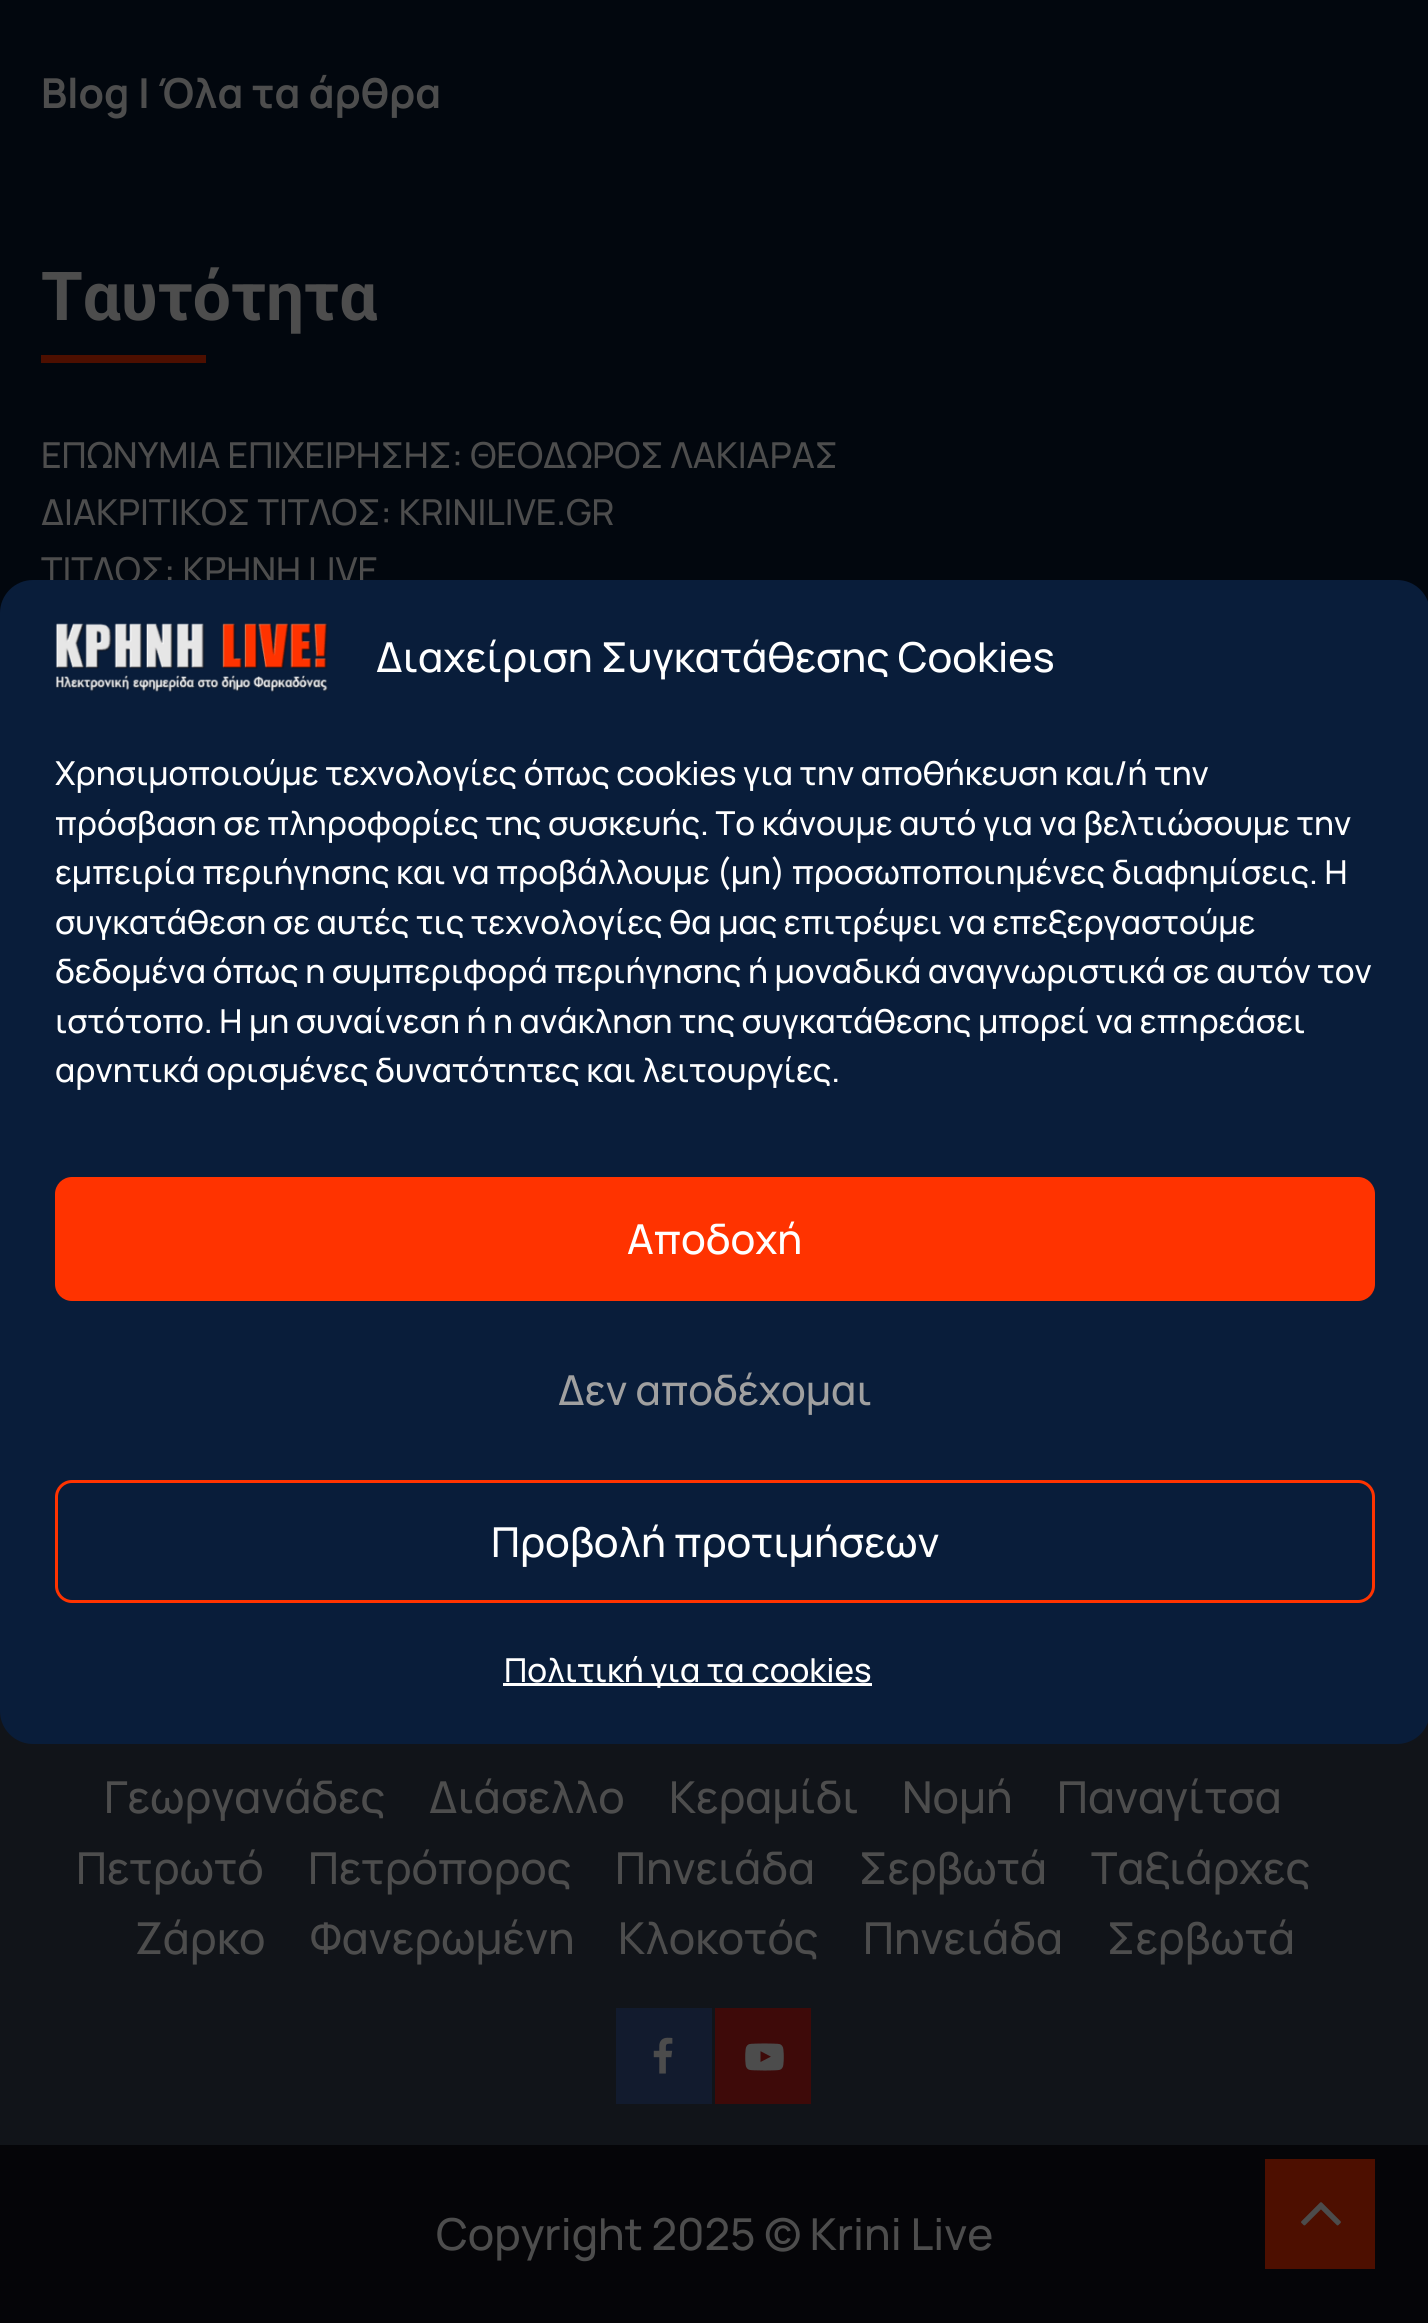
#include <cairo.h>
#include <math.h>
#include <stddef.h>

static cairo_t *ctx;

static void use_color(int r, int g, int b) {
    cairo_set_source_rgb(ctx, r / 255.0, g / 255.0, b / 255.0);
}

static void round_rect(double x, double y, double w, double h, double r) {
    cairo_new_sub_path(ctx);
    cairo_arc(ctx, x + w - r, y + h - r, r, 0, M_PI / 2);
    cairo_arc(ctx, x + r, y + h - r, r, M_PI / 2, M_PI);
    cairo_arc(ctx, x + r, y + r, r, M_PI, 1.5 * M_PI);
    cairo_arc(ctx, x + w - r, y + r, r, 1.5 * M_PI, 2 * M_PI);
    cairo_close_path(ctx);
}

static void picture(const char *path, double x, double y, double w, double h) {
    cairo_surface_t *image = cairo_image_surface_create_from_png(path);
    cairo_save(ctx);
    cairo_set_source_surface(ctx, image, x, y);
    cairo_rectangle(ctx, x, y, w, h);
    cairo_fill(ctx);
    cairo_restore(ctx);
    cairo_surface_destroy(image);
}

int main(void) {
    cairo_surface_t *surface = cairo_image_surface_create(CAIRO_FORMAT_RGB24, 1428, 2323);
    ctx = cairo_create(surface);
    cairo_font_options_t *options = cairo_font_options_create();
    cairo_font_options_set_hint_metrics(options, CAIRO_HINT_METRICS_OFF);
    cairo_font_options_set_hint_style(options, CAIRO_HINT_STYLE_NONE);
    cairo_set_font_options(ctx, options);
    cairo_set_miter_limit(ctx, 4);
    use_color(2, 7, 14);
    cairo_paint(ctx);
    cairo_select_font_face(ctx, "Manrope", CAIRO_FONT_SLANT_NORMAL, CAIRO_FONT_WEIGHT_BOLD);
    cairo_set_font_size(ctx, 41.25);
    use_color(77, 77, 77);
    cairo_move_to(ctx, 41, 108);
    cairo_show_text(ctx, "Blog | Όλα τα άρθρα");
    cairo_select_font_face(ctx, "Roboto", CAIRO_FONT_SLANT_NORMAL, CAIRO_FONT_WEIGHT_BOLD);
    cairo_set_font_size(ctx, 67.5);
    cairo_move_to(ctx, 41, 320);
    cairo_show_text(ctx, "Ταυτότητα");
    use_color(77, 15, 0);
    cairo_rectangle(ctx, 41, 355, 165, 8);
    cairo_fill(ctx);
    cairo_select_font_face(ctx, "Manrope Medium", CAIRO_FONT_SLANT_NORMAL, CAIRO_FONT_WEIGHT_NORMAL);
    cairo_set_font_size(ctx, 35.75);
    use_color(77, 77, 77);
    cairo_move_to(ctx, 41, 468);
    cairo_show_text(ctx, "ΕΠΩΝΥΜΙΑ ΕΠΙΧΕΙΡΗΣΗΣ: ΘΕΟΔΩΡΟΣ ΛΑΚΙΑΡΑΣ");
    cairo_move_to(ctx, 41, 525);
    cairo_show_text(ctx, "ΔΙΑΚΡΙΤΙΚΟΣ ΤΙΤΛΟΣ: KRINILIVE.GR");
    cairo_move_to(ctx, 41, 583);
    cairo_show_text(ctx, "ΤΙΤΛΟΣ: ΚΡΗΝΗ LIVE");
    use_color(17, 20, 25);
    cairo_rectangle(ctx, 0, 1711, 1428, 434);
    cairo_fill(ctx);
    cairo_set_font_size(ctx, 44);
    use_color(77, 77, 77);
    cairo_move_to(ctx, 104, 1813);
    cairo_show_text(ctx, "Γεωργανάδες");
    cairo_move_to(ctx, 429, 1813);
    cairo_show_text(ctx, "Διάσελλο");
    cairo_move_to(ctx, 669, 1813);
    cairo_show_text(ctx, "Κεραμίδι");
    cairo_move_to(ctx, 902, 1813);
    cairo_show_text(ctx, "Νομή");
    cairo_move_to(ctx, 1057, 1813);
    cairo_show_text(ctx, "Παναγίτσα");
    cairo_move_to(ctx, 76, 1884);
    cairo_show_text(ctx, "Πετρωτό");
    cairo_move_to(ctx, 308, 1884);
    cairo_show_text(ctx, "Πετρόπορος");
    cairo_move_to(ctx, 615, 1884);
    cairo_show_text(ctx, "Πηνειάδα");
    cairo_move_to(ctx, 859, 1884);
    cairo_show_text(ctx, "Σερβωτά");
    cairo_move_to(ctx, 1091, 1884);
    cairo_show_text(ctx, "Ταξιάρχες");
    cairo_move_to(ctx, 135, 1954);
    cairo_show_text(ctx, "Ζάρκο");
    cairo_move_to(ctx, 310, 1954);
    cairo_show_text(ctx, "Φανερωμένη");
    cairo_move_to(ctx, 618, 1954);
    cairo_show_text(ctx, "Κλοκοτός");
    cairo_move_to(ctx, 863, 1954);
    cairo_show_text(ctx, "Πηνειάδα");
    cairo_move_to(ctx, 1107, 1954);
    cairo_show_text(ctx, "Σερβωτά");
    use_color(18, 27, 46);
    cairo_rectangle(ctx, 616, 2008, 96, 96);
    cairo_fill(ctx);
    picture("img1.png", 653, 2037, 20, 37);
    use_color(62, 10, 9);
    cairo_rectangle(ctx, 715, 2008, 96, 96);
    cairo_fill(ctx);
    picture("img2.png", 745, 2043, 39, 28);
    use_color(5, 5, 8);
    cairo_rectangle(ctx, 0, 2145, 1428, 178);
    cairo_fill(ctx);
    use_color(77, 77, 77);
    cairo_move_to(ctx, 436, 2250);
    cairo_show_text(ctx, "Copyright 2025 © Krini Live");
    use_color(9, 29, 58);
    round_rect(0, 580, 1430, 1164, 33);
    cairo_fill(ctx);
    picture("img3.png", 55, 623, 273, 69);
    cairo_set_font_size(ctx, 41.25);
    use_color(255, 255, 255);
    cairo_move_to(ctx, 376, 672);
    cairo_show_text(ctx, "Διαχείριση Συγκατάθεσης Cookies");
    cairo_set_font_size(ctx, 33);
    cairo_move_to(ctx, 55, 785);
    cairo_show_text(ctx, "Χρησιμοποιούμε τεχνολογίες όπως cookies για την αποθήκευση και/ή την");
    cairo_move_to(ctx, 55, 835);
    cairo_show_text(ctx, "πρόσβαση σε πληροφορίες της συσκευής. Το κάνουμε αυτό για να βελτιώσουμε την");
    cairo_move_to(ctx, 55, 884);
    cairo_show_text(ctx, "εμπειρία περιήγησης και να προβάλλουμε (μη) προσωποποιημένες διαφημίσεις. Η");
    cairo_move_to(ctx, 55, 934);
    cairo_show_text(ctx, "συγκατάθεση σε αυτές τις τεχνολογίες θα μας επιτρέψει να επεξεργαστούμε");
    cairo_move_to(ctx, 55, 983);
    cairo_show_text(ctx, "δεδομένα όπως η συμπεριφορά περιήγησης ή μοναδικά αναγνωριστικά σε αυτόν τον");
    cairo_move_to(ctx, 55, 1033);
    cairo_show_text(ctx, "ιστότοπο. Η μη συναίνεση ή η ανάκληση της συγκατάθεσης μπορεί να επηρεάσει");
    cairo_move_to(ctx, 55, 1082);
    cairo_show_text(ctx, "αρνητικά ορισμένες δυνατότητες και λειτουργίες.");
    use_color(255, 51, 0);
    round_rect(56.5, 1178.5, 1317, 121, 15.5);
    cairo_fill_preserve(ctx);
    cairo_set_line_width(ctx, 3);
    cairo_stroke(ctx);
    cairo_set_font_size(ctx, 41.25);
    use_color(255, 255, 255);
    cairo_move_to(ctx, 627, 1254);
    cairo_show_text(ctx, "Αποδοχή");
    use_color(160, 160, 160);
    cairo_move_to(ctx, 558, 1405);
    cairo_show_text(ctx, "Δεν αποδέχομαι");
    round_rect(56.5, 1481.5, 1317, 120, 15.5);
    use_color(255, 51, 0);
    cairo_stroke(ctx);
    use_color(255, 255, 255);
    cairo_move_to(ctx, 491, 1557);
    cairo_show_text(ctx, "Προβολή προτιμήσεων");
    cairo_rectangle(ctx, 503, 1683, 369, 3);
    cairo_fill(ctx);
    cairo_set_font_size(ctx, 33);
    cairo_move_to(ctx, 504, 1682);
    cairo_show_text(ctx, "Πολιτική για τα cookies");
    use_color(77, 15, 0);
    cairo_rectangle(ctx, 1265, 2159, 110, 110);
    cairo_fill(ctx);
    picture("img4.png", 1301, 2202, 40, 24);
    cairo_surface_write_to_png(surface, "result.png");
    cairo_font_options_destroy(options);
    cairo_destroy(ctx);
    cairo_surface_destroy(surface);
    return 0;
}
